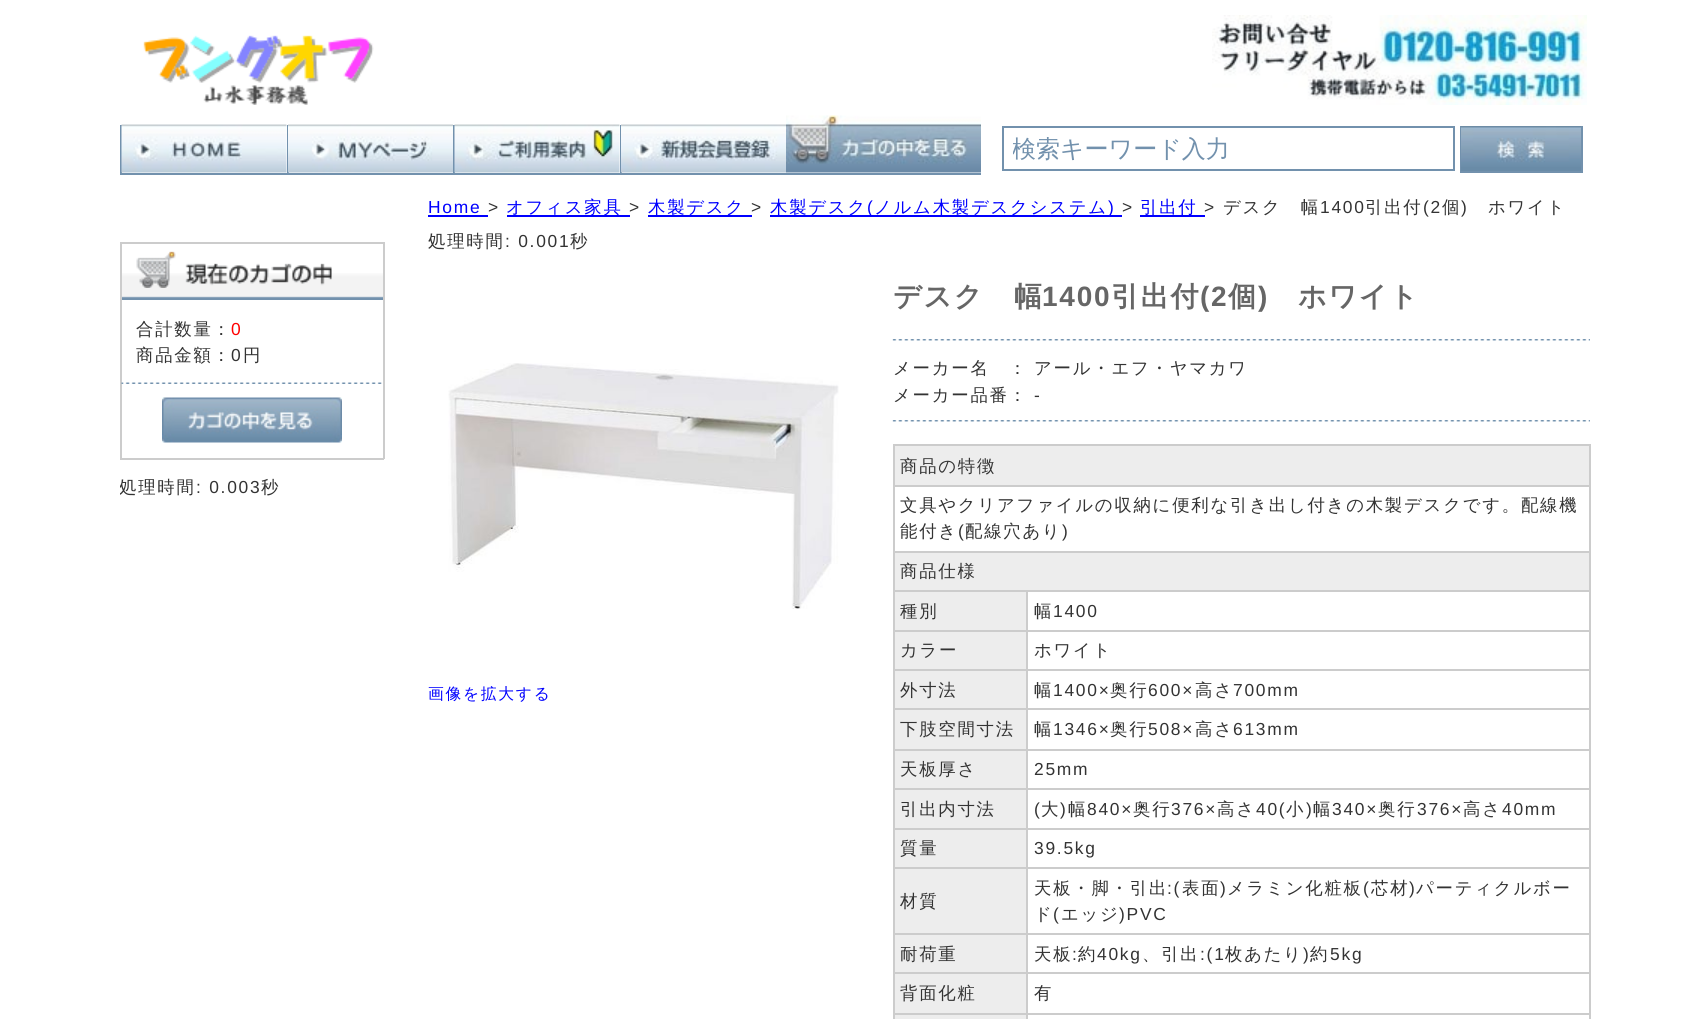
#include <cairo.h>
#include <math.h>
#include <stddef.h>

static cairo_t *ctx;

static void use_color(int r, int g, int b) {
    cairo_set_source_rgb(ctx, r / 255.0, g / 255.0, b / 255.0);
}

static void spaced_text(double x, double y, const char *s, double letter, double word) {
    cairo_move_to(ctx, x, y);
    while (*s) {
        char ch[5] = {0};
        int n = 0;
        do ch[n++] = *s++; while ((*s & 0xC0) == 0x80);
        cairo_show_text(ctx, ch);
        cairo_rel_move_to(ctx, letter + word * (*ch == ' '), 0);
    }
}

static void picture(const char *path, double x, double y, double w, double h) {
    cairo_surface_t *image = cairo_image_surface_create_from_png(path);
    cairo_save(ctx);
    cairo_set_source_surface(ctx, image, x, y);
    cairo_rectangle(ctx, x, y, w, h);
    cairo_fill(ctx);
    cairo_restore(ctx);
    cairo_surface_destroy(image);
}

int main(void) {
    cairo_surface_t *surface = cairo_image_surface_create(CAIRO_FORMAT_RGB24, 1708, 1019);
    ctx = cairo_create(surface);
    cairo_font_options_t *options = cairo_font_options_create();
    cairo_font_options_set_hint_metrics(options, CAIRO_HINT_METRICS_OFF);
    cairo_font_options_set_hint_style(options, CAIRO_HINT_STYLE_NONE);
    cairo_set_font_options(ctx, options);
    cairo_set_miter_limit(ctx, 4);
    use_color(255, 255, 255);
    cairo_paint(ctx);
    picture("img1.png", 143, 35, 231, 70);
    picture("img2.png", 1212, 15, 375, 90);
    picture("img3.png", 786, 115, 195, 58);
    use_color(114, 145, 173);
    cairo_rectangle(ctx, 120, 173, 861, 2);
    cairo_fill(ctx);
    cairo_rectangle(ctx, 120, 125, 2, 49);
    cairo_fill(ctx);
    picture("img4.png", 121, 124, 166, 49);
    cairo_rectangle(ctx, 287, 125, 2, 49);
    cairo_fill(ctx);
    picture("img5.png", 288, 124, 165, 49);
    cairo_rectangle(ctx, 453, 125, 2, 49);
    cairo_fill(ctx);
    picture("img6.png", 454, 124, 166, 49);
    cairo_rectangle(ctx, 620, 125, 2, 49);
    cairo_fill(ctx);
    picture("img7.png", 621, 124, 165, 49);
    cairo_rectangle(ctx, 1003, 127, 451, 43);
    cairo_stroke(ctx);
    cairo_save(ctx);
    cairo_rectangle(ctx, 1013, 135, 441, 32);
    cairo_clip(ctx);
    cairo_select_font_face(ctx, "WenQuanYi Zen Hei Medium", CAIRO_FONT_SLANT_NORMAL, CAIRO_FONT_WEIGHT_NORMAL);
    cairo_set_font_size(ctx, 24);
    cairo_move_to(ctx, 1012, 157);
    cairo_show_text(ctx, "検索キーワード入力");
    cairo_restore(ctx);
    cairo_rectangle(ctx, 1581, 126, 2, 47);
    cairo_fill(ctx);
    cairo_rectangle(ctx, 1460, 171, 123, 2);
    cairo_fill(ctx);
    cairo_rectangle(ctx, 1460, 126, 2, 47);
    cairo_fill(ctx);
    picture("img8.png", 1461, 126, 120, 45);
    picture("img9.png", 122, 273, 261, 27);
    use_color(204, 204, 204);
    cairo_rectangle(ctx, 120, 242, 264, 2);
    cairo_fill(ctx);
    cairo_rectangle(ctx, 383, 242, 2, 217);
    cairo_fill(ctx);
    cairo_rectangle(ctx, 120, 242, 2, 58);
    cairo_fill(ctx);
    picture("img10.png", 136, 251, 196, 37);
    cairo_rectangle(ctx, 120, 458, 264, 2);
    cairo_fill(ctx);
    cairo_rectangle(ctx, 120, 300, 2, 159);
    cairo_fill(ctx);
    cairo_select_font_face(ctx, "WenQuanYi Zen Hei Medium", CAIRO_FONT_SLANT_NORMAL, CAIRO_FONT_WEIGHT_NORMAL);
    cairo_set_font_size(ctx, 17.4);
    use_color(51, 51, 51);
    spaced_text(136, 335, "合計数量：", 1.75, 0);
    cairo_select_font_face(ctx, "Liberation Sans", CAIRO_FONT_SLANT_NORMAL, CAIRO_FONT_WEIGHT_NORMAL);
    use_color(255, 0, 0);
    spaced_text(231, 335, "0", 1.75, 0);
    cairo_select_font_face(ctx, "WenQuanYi Zen Hei Medium", CAIRO_FONT_SLANT_NORMAL, CAIRO_FONT_WEIGHT_NORMAL);
    use_color(51, 51, 51);
    spaced_text(136, 361, "商品金額：", 1.75, 0);
    cairo_select_font_face(ctx, "Liberation Sans", CAIRO_FONT_SLANT_NORMAL, CAIRO_FONT_WEIGHT_NORMAL);
    spaced_text(231, 361, "0", 1.75, 0);
    cairo_select_font_face(ctx, "WenQuanYi Zen Hei Medium", CAIRO_FONT_SLANT_NORMAL, CAIRO_FONT_WEIGHT_NORMAL);
    spaced_text(243, 361, "円", 1.75, 0);
    picture("img11.png", 121, 382, 261, 2);
    picture("img12.png", 162, 397, 180, 46);
    cairo_save(ctx);
    cairo_rectangle(ctx, 120, 179, 279, 321);
    cairo_clip(ctx);
    spaced_text(119, 493, "処理時間", 1.75, 0);
    cairo_restore(ctx);
    cairo_select_font_face(ctx, "Liberation Sans", CAIRO_FONT_SLANT_NORMAL, CAIRO_FONT_WEIGHT_NORMAL);
    spaced_text(196, 493, ": 0.003", 1.75, 0);
    cairo_select_font_face(ctx, "WenQuanYi Zen Hei Medium", CAIRO_FONT_SLANT_NORMAL, CAIRO_FONT_WEIGHT_NORMAL);
    spaced_text(261, 493, "秒", 1.75, 0);
    cairo_select_font_face(ctx, "Liberation Sans", CAIRO_FONT_SLANT_NORMAL, CAIRO_FONT_WEIGHT_NORMAL);
    use_color(0, 0, 255);
    spaced_text(428, 213, "Home", 1.75, 0);
    cairo_rectangle(ctx, 428, 215, 60, 2);
    cairo_fill(ctx);
    use_color(51, 51, 51);
    spaced_text(488, 213, ">", 1.75, 0);
    use_color(0, 0, 255);
    cairo_rectangle(ctx, 507, 215, 123, 2);
    cairo_fill(ctx);
    cairo_select_font_face(ctx, "WenQuanYi Zen Hei Medium", CAIRO_FONT_SLANT_NORMAL, CAIRO_FONT_WEIGHT_NORMAL);
    spaced_text(506, 213, "オフィス家具", 1.75, 0);
    cairo_select_font_face(ctx, "Liberation Sans", CAIRO_FONT_SLANT_NORMAL, CAIRO_FONT_WEIGHT_NORMAL);
    use_color(51, 51, 51);
    spaced_text(629, 213, ">", 1.75, 0);
    use_color(0, 0, 255);
    cairo_rectangle(ctx, 648, 215, 104, 2);
    cairo_fill(ctx);
    cairo_select_font_face(ctx, "WenQuanYi Zen Hei Medium", CAIRO_FONT_SLANT_NORMAL, CAIRO_FONT_WEIGHT_NORMAL);
    spaced_text(648, 213, "木製デスク", 1.75, 0);
    cairo_select_font_face(ctx, "Liberation Sans", CAIRO_FONT_SLANT_NORMAL, CAIRO_FONT_WEIGHT_NORMAL);
    use_color(51, 51, 51);
    spaced_text(751, 213, ">", 1.75, 0);
    use_color(0, 0, 255);
    cairo_rectangle(ctx, 770, 215, 352, 2);
    cairo_fill(ctx);
    cairo_select_font_face(ctx, "WenQuanYi Zen Hei Medium", CAIRO_FONT_SLANT_NORMAL, CAIRO_FONT_WEIGHT_NORMAL);
    spaced_text(770, 213, "木製デスク", 1.75, 0);
    cairo_select_font_face(ctx, "Liberation Sans", CAIRO_FONT_SLANT_NORMAL, CAIRO_FONT_WEIGHT_NORMAL);
    spaced_text(867, 213, "(", 1.75, 0);
    cairo_select_font_face(ctx, "WenQuanYi Zen Hei Medium", CAIRO_FONT_SLANT_NORMAL, CAIRO_FONT_WEIGHT_NORMAL);
    spaced_text(874, 213, "ノルム木製デスクシステム", 1.75, 0);
    cairo_select_font_face(ctx, "Liberation Sans", CAIRO_FONT_SLANT_NORMAL, CAIRO_FONT_WEIGHT_NORMAL);
    spaced_text(1108, 213, ")", 1.75, 0);
    use_color(51, 51, 51);
    spaced_text(1122, 213, ">", 1.75, 0);
    use_color(0, 0, 255);
    cairo_rectangle(ctx, 1140, 215, 65, 2);
    cairo_fill(ctx);
    cairo_select_font_face(ctx, "WenQuanYi Zen Hei Medium", CAIRO_FONT_SLANT_NORMAL, CAIRO_FONT_WEIGHT_NORMAL);
    spaced_text(1140, 213, "引出付", 1.75, 0);
    cairo_select_font_face(ctx, "Liberation Sans", CAIRO_FONT_SLANT_NORMAL, CAIRO_FONT_WEIGHT_NORMAL);
    use_color(51, 51, 51);
    spaced_text(1204, 213, ">", 1.75, 0);
    cairo_select_font_face(ctx, "WenQuanYi Zen Hei Medium", CAIRO_FONT_SLANT_NORMAL, CAIRO_FONT_WEIGHT_NORMAL);
    spaced_text(1223, 213, "デスク　幅", 1.75, 0);
    cairo_select_font_face(ctx, "Liberation Sans", CAIRO_FONT_SLANT_NORMAL, CAIRO_FONT_WEIGHT_NORMAL);
    spaced_text(1320, 213, "1400", 1.75, 0);
    cairo_select_font_face(ctx, "WenQuanYi Zen Hei Medium", CAIRO_FONT_SLANT_NORMAL, CAIRO_FONT_WEIGHT_NORMAL);
    spaced_text(1365, 213, "引出付", 1.75, 0);
    cairo_select_font_face(ctx, "Liberation Sans", CAIRO_FONT_SLANT_NORMAL, CAIRO_FONT_WEIGHT_NORMAL);
    spaced_text(1423, 213, "(2", 1.75, 0);
    cairo_select_font_face(ctx, "WenQuanYi Zen Hei Medium", CAIRO_FONT_SLANT_NORMAL, CAIRO_FONT_WEIGHT_NORMAL);
    spaced_text(1442, 213, "個", 1.75, 0);
    cairo_select_font_face(ctx, "Liberation Sans", CAIRO_FONT_SLANT_NORMAL, CAIRO_FONT_WEIGHT_NORMAL);
    spaced_text(1461, 213, ")", 1.75, 0);
    cairo_select_font_face(ctx, "WenQuanYi Zen Hei Medium", CAIRO_FONT_SLANT_NORMAL, CAIRO_FONT_WEIGHT_NORMAL);
    spaced_text(1488, 213, "ホワイト", 1.75, 0);
    spaced_text(428, 247, "処理時間", 1.75, 0);
    cairo_select_font_face(ctx, "Liberation Sans", CAIRO_FONT_SLANT_NORMAL, CAIRO_FONT_WEIGHT_NORMAL);
    spaced_text(505, 247, ": 0.001", 1.75, 0);
    cairo_select_font_face(ctx, "WenQuanYi Zen Hei Medium", CAIRO_FONT_SLANT_NORMAL, CAIRO_FONT_WEIGHT_NORMAL);
    spaced_text(570, 247, "秒", 1.75, 0);
    picture("img13.png", 448, 363, 391, 246);
    cairo_set_font_size(ctx, 15.75);
    use_color(0, 0, 255);
    spaced_text(428, 699, "画像を拡大する", 1.75, 0);
    picture("img14.png", 892, 339, 698, 2);
    cairo_select_font_face(ctx, "WenQuanYi Zen Hei", CAIRO_FONT_SLANT_NORMAL, CAIRO_FONT_WEIGHT_BOLD);
    cairo_set_font_size(ctx, 28);
    use_color(102, 102, 102);
    spaced_text(893, 306, "デスク　幅", 1.75, 0);
    cairo_select_font_face(ctx, "Liberation Sans", CAIRO_FONT_SLANT_NORMAL, CAIRO_FONT_WEIGHT_BOLD);
    spaced_text(1042, 306, "1400", 1.75, 0);
    cairo_select_font_face(ctx, "WenQuanYi Zen Hei", CAIRO_FONT_SLANT_NORMAL, CAIRO_FONT_WEIGHT_BOLD);
    spaced_text(1111, 306, "引出付", 1.75, 0);
    cairo_select_font_face(ctx, "Liberation Sans", CAIRO_FONT_SLANT_NORMAL, CAIRO_FONT_WEIGHT_BOLD);
    spaced_text(1200, 306, "(2", 1.75, 0);
    cairo_select_font_face(ctx, "WenQuanYi Zen Hei", CAIRO_FONT_SLANT_NORMAL, CAIRO_FONT_WEIGHT_BOLD);
    spaced_text(1228, 306, "個", 1.75, 0);
    cairo_select_font_face(ctx, "Liberation Sans", CAIRO_FONT_SLANT_NORMAL, CAIRO_FONT_WEIGHT_BOLD);
    spaced_text(1258, 306, ")", 1.75, 0);
    cairo_select_font_face(ctx, "WenQuanYi Zen Hei", CAIRO_FONT_SLANT_NORMAL, CAIRO_FONT_WEIGHT_BOLD);
    spaced_text(1298, 306, "ホワイト", 1.75, 0);
    cairo_select_font_face(ctx, "WenQuanYi Zen Hei Medium", CAIRO_FONT_SLANT_NORMAL, CAIRO_FONT_WEIGHT_NORMAL);
    cairo_set_font_size(ctx, 17.4);
    use_color(51, 51, 51);
    spaced_text(893, 374, "メーカー名　：", 1.75, 0);
    spaced_text(1034, 374, "アール・エフ・ヤマカワ", 1.75, 0);
    spaced_text(893, 401, "メーカー品番：", 1.75, 0);
    cairo_select_font_face(ctx, "Liberation Sans", CAIRO_FONT_SLANT_NORMAL, CAIRO_FONT_WEIGHT_NORMAL);
    spaced_text(1034, 401, "-", 1.75, 0);
    picture("img14.png", 892, 420, 698, 2);
    use_color(204, 204, 204);
    cairo_rectangle(ctx, 893, 444, 697, 2);
    cairo_fill(ctx);
    use_color(237, 237, 237);
    cairo_rectangle(ctx, 894, 1015, 134, 4);
    cairo_fill(ctx);
    use_color(204, 204, 204);
    cairo_rectangle(ctx, 893, 444, 2, 575);
    cairo_fill(ctx);
    cairo_rectangle(ctx, 1026, 1013, 2, 6);
    cairo_fill(ctx);
    cairo_rectangle(ctx, 1589, 444, 2, 575);
    cairo_fill(ctx);
    use_color(237, 237, 237);
    cairo_rectangle(ctx, 895, 446, 694, 39);
    cairo_fill(ctx);
    use_color(204, 204, 204);
    cairo_rectangle(ctx, 893, 485, 697, 2);
    cairo_fill(ctx);
    cairo_select_font_face(ctx, "WenQuanYi Zen Hei Medium", CAIRO_FONT_SLANT_NORMAL, CAIRO_FONT_WEIGHT_NORMAL);
    use_color(51, 51, 51);
    spaced_text(900, 472, "商品の特徴", 1.75, 0);
    use_color(204, 204, 204);
    cairo_rectangle(ctx, 893, 551, 697, 2);
    cairo_fill(ctx);
    use_color(51, 51, 51);
    spaced_text(900, 511, "文具やクリアファイルの収納に便利な引き出し付きの木製デスクです。配線機", 1.75, 0);
    spaced_text(900, 537, "能付き", 1.75, 0);
    cairo_select_font_face(ctx, "Liberation Sans", CAIRO_FONT_SLANT_NORMAL, CAIRO_FONT_WEIGHT_NORMAL);
    spaced_text(958, 537, "(", 1.75, 0);
    cairo_select_font_face(ctx, "WenQuanYi Zen Hei Medium", CAIRO_FONT_SLANT_NORMAL, CAIRO_FONT_WEIGHT_NORMAL);
    spaced_text(965, 537, "配線穴あり", 1.75, 0);
    cairo_select_font_face(ctx, "Liberation Sans", CAIRO_FONT_SLANT_NORMAL, CAIRO_FONT_WEIGHT_NORMAL);
    spaced_text(1062, 537, ")", 1.75, 0);
    use_color(237, 237, 237);
    cairo_rectangle(ctx, 895, 553, 694, 37);
    cairo_fill(ctx);
    use_color(204, 204, 204);
    cairo_rectangle(ctx, 1026, 1013, 564, 2);
    cairo_fill(ctx);
    cairo_rectangle(ctx, 1026, 972, 2, 42);
    cairo_fill(ctx);
    cairo_rectangle(ctx, 1026, 972, 564, 2);
    cairo_fill(ctx);
    cairo_rectangle(ctx, 1026, 933, 2, 41);
    cairo_fill(ctx);
    cairo_rectangle(ctx, 1026, 933, 564, 2);
    cairo_fill(ctx);
    cairo_rectangle(ctx, 1026, 867, 2, 68);
    cairo_fill(ctx);
    cairo_rectangle(ctx, 1026, 867, 564, 2);
    cairo_fill(ctx);
    cairo_rectangle(ctx, 1026, 828, 2, 41);
    cairo_fill(ctx);
    cairo_rectangle(ctx, 1026, 828, 564, 2);
    cairo_fill(ctx);
    cairo_rectangle(ctx, 1026, 788, 2, 42);
    cairo_fill(ctx);
    cairo_rectangle(ctx, 1026, 788, 564, 2);
    cairo_fill(ctx);
    cairo_rectangle(ctx, 1026, 749, 2, 40);
    cairo_fill(ctx);
    cairo_rectangle(ctx, 1026, 749, 564, 2);
    cairo_fill(ctx);
    cairo_rectangle(ctx, 1026, 708, 2, 42);
    cairo_fill(ctx);
    cairo_rectangle(ctx, 1026, 708, 564, 2);
    cairo_fill(ctx);
    cairo_rectangle(ctx, 1026, 669, 2, 41);
    cairo_fill(ctx);
    cairo_rectangle(ctx, 1026, 669, 564, 2);
    cairo_fill(ctx);
    cairo_rectangle(ctx, 1026, 630, 2, 41);
    cairo_fill(ctx);
    cairo_rectangle(ctx, 1026, 630, 564, 2);
    cairo_fill(ctx);
    cairo_rectangle(ctx, 1026, 590, 2, 42);
    cairo_fill(ctx);
    cairo_rectangle(ctx, 893, 590, 697, 2);
    cairo_fill(ctx);
    cairo_select_font_face(ctx, "WenQuanYi Zen Hei Medium", CAIRO_FONT_SLANT_NORMAL, CAIRO_FONT_WEIGHT_NORMAL);
    use_color(51, 51, 51);
    spaced_text(900, 577, "商品仕様", 1.75, 0);
    use_color(237, 237, 237);
    cairo_rectangle(ctx, 895, 592, 131, 38);
    cairo_fill(ctx);
    use_color(204, 204, 204);
    cairo_rectangle(ctx, 893, 630, 135, 2);
    cairo_fill(ctx);
    use_color(51, 51, 51);
    spaced_text(900, 617, "種別", 1.75, 0);
    spaced_text(1034, 617, "幅", 1.75, 0);
    cairo_select_font_face(ctx, "Liberation Sans", CAIRO_FONT_SLANT_NORMAL, CAIRO_FONT_WEIGHT_NORMAL);
    spaced_text(1053, 617, "1400", 1.75, 0);
    use_color(237, 237, 237);
    cairo_rectangle(ctx, 895, 632, 131, 37);
    cairo_fill(ctx);
    use_color(204, 204, 204);
    cairo_rectangle(ctx, 893, 669, 135, 2);
    cairo_fill(ctx);
    cairo_select_font_face(ctx, "WenQuanYi Zen Hei Medium", CAIRO_FONT_SLANT_NORMAL, CAIRO_FONT_WEIGHT_NORMAL);
    use_color(51, 51, 51);
    spaced_text(900, 656, "カラー", 1.75, 0);
    spaced_text(1034, 656, "ホワイト", 1.75, 0);
    use_color(237, 237, 237);
    cairo_rectangle(ctx, 895, 671, 131, 37);
    cairo_fill(ctx);
    use_color(204, 204, 204);
    cairo_rectangle(ctx, 893, 708, 135, 2);
    cairo_fill(ctx);
    use_color(51, 51, 51);
    spaced_text(900, 696, "外寸法", 1.75, 0);
    spaced_text(1034, 696, "幅", 1.75, 0);
    cairo_select_font_face(ctx, "Liberation Sans", CAIRO_FONT_SLANT_NORMAL, CAIRO_FONT_WEIGHT_NORMAL);
    spaced_text(1053, 696, "1400×", 1.75, 0);
    cairo_select_font_face(ctx, "WenQuanYi Zen Hei Medium", CAIRO_FONT_SLANT_NORMAL, CAIRO_FONT_WEIGHT_NORMAL);
    spaced_text(1110, 696, "奥行", 1.75, 0);
    cairo_select_font_face(ctx, "Liberation Sans", CAIRO_FONT_SLANT_NORMAL, CAIRO_FONT_WEIGHT_NORMAL);
    spaced_text(1148, 696, "600×", 1.75, 0);
    cairo_select_font_face(ctx, "WenQuanYi Zen Hei Medium", CAIRO_FONT_SLANT_NORMAL, CAIRO_FONT_WEIGHT_NORMAL);
    spaced_text(1195, 696, "高さ", 1.75, 0);
    cairo_select_font_face(ctx, "Liberation Sans", CAIRO_FONT_SLANT_NORMAL, CAIRO_FONT_WEIGHT_NORMAL);
    spaced_text(1233, 696, "700mm", 1.75, 0);
    use_color(237, 237, 237);
    cairo_rectangle(ctx, 895, 710, 131, 39);
    cairo_fill(ctx);
    use_color(204, 204, 204);
    cairo_rectangle(ctx, 893, 749, 135, 2);
    cairo_fill(ctx);
    cairo_select_font_face(ctx, "WenQuanYi Zen Hei Medium", CAIRO_FONT_SLANT_NORMAL, CAIRO_FONT_WEIGHT_NORMAL);
    use_color(51, 51, 51);
    spaced_text(900, 735, "下肢空間寸法", 1.75, 0);
    spaced_text(1034, 735, "幅", 1.75, 0);
    cairo_select_font_face(ctx, "Liberation Sans", CAIRO_FONT_SLANT_NORMAL, CAIRO_FONT_WEIGHT_NORMAL);
    spaced_text(1053, 735, "1346×", 1.75, 0);
    cairo_select_font_face(ctx, "WenQuanYi Zen Hei Medium", CAIRO_FONT_SLANT_NORMAL, CAIRO_FONT_WEIGHT_NORMAL);
    spaced_text(1110, 735, "奥行", 1.75, 0);
    cairo_select_font_face(ctx, "Liberation Sans", CAIRO_FONT_SLANT_NORMAL, CAIRO_FONT_WEIGHT_NORMAL);
    spaced_text(1148, 735, "508×", 1.75, 0);
    cairo_select_font_face(ctx, "WenQuanYi Zen Hei Medium", CAIRO_FONT_SLANT_NORMAL, CAIRO_FONT_WEIGHT_NORMAL);
    spaced_text(1195, 735, "高さ", 1.75, 0);
    cairo_select_font_face(ctx, "Liberation Sans", CAIRO_FONT_SLANT_NORMAL, CAIRO_FONT_WEIGHT_NORMAL);
    spaced_text(1233, 735, "613mm", 1.75, 0);
    use_color(237, 237, 237);
    cairo_rectangle(ctx, 895, 751, 131, 37);
    cairo_fill(ctx);
    use_color(204, 204, 204);
    cairo_rectangle(ctx, 893, 788, 135, 2);
    cairo_fill(ctx);
    cairo_select_font_face(ctx, "WenQuanYi Zen Hei Medium", CAIRO_FONT_SLANT_NORMAL, CAIRO_FONT_WEIGHT_NORMAL);
    use_color(51, 51, 51);
    spaced_text(900, 775, "天板厚さ", 1.75, 0);
    cairo_select_font_face(ctx, "Liberation Sans", CAIRO_FONT_SLANT_NORMAL, CAIRO_FONT_WEIGHT_NORMAL);
    spaced_text(1034, 775, "25mm", 1.75, 0);
    use_color(237, 237, 237);
    cairo_rectangle(ctx, 895, 790, 131, 38);
    cairo_fill(ctx);
    use_color(204, 204, 204);
    cairo_rectangle(ctx, 893, 828, 135, 2);
    cairo_fill(ctx);
    cairo_select_font_face(ctx, "WenQuanYi Zen Hei Medium", CAIRO_FONT_SLANT_NORMAL, CAIRO_FONT_WEIGHT_NORMAL);
    use_color(51, 51, 51);
    spaced_text(900, 815, "引出内寸法", 1.75, 0);
    cairo_select_font_face(ctx, "Liberation Sans", CAIRO_FONT_SLANT_NORMAL, CAIRO_FONT_WEIGHT_NORMAL);
    spaced_text(1034, 815, "(", 1.75, 0);
    cairo_select_font_face(ctx, "WenQuanYi Zen Hei Medium", CAIRO_FONT_SLANT_NORMAL, CAIRO_FONT_WEIGHT_NORMAL);
    spaced_text(1041, 815, "大", 1.75, 0);
    cairo_select_font_face(ctx, "Liberation Sans", CAIRO_FONT_SLANT_NORMAL, CAIRO_FONT_WEIGHT_NORMAL);
    spaced_text(1060, 815, ")", 1.75, 0);
    cairo_select_font_face(ctx, "WenQuanYi Zen Hei Medium", CAIRO_FONT_SLANT_NORMAL, CAIRO_FONT_WEIGHT_NORMAL);
    spaced_text(1068, 815, "幅", 1.75, 0);
    cairo_select_font_face(ctx, "Liberation Sans", CAIRO_FONT_SLANT_NORMAL, CAIRO_FONT_WEIGHT_NORMAL);
    spaced_text(1087, 815, "840×", 1.75, 0);
    cairo_select_font_face(ctx, "WenQuanYi Zen Hei Medium", CAIRO_FONT_SLANT_NORMAL, CAIRO_FONT_WEIGHT_NORMAL);
    spaced_text(1133, 815, "奥行", 1.75, 0);
    cairo_select_font_face(ctx, "Liberation Sans", CAIRO_FONT_SLANT_NORMAL, CAIRO_FONT_WEIGHT_NORMAL);
    spaced_text(1171, 815, "376×", 1.75, 0);
    cairo_select_font_face(ctx, "WenQuanYi Zen Hei Medium", CAIRO_FONT_SLANT_NORMAL, CAIRO_FONT_WEIGHT_NORMAL);
    spaced_text(1217, 815, "高さ", 1.75, 0);
    cairo_select_font_face(ctx, "Liberation Sans", CAIRO_FONT_SLANT_NORMAL, CAIRO_FONT_WEIGHT_NORMAL);
    spaced_text(1256, 815, "40(", 1.75, 0);
    cairo_select_font_face(ctx, "WenQuanYi Zen Hei Medium", CAIRO_FONT_SLANT_NORMAL, CAIRO_FONT_WEIGHT_NORMAL);
    spaced_text(1286, 815, "小", 1.75, 0);
    cairo_select_font_face(ctx, "Liberation Sans", CAIRO_FONT_SLANT_NORMAL, CAIRO_FONT_WEIGHT_NORMAL);
    spaced_text(1306, 815, ")", 1.75, 0);
    cairo_select_font_face(ctx, "WenQuanYi Zen Hei Medium", CAIRO_FONT_SLANT_NORMAL, CAIRO_FONT_WEIGHT_NORMAL);
    spaced_text(1313, 815, "幅", 1.75, 0);
    cairo_select_font_face(ctx, "Liberation Sans", CAIRO_FONT_SLANT_NORMAL, CAIRO_FONT_WEIGHT_NORMAL);
    spaced_text(1332, 815, "340×", 1.75, 0);
    cairo_select_font_face(ctx, "WenQuanYi Zen Hei Medium", CAIRO_FONT_SLANT_NORMAL, CAIRO_FONT_WEIGHT_NORMAL);
    spaced_text(1378, 815, "奥行", 1.75, 0);
    cairo_select_font_face(ctx, "Liberation Sans", CAIRO_FONT_SLANT_NORMAL, CAIRO_FONT_WEIGHT_NORMAL);
    spaced_text(1417, 815, "376×", 1.75, 0);
    cairo_select_font_face(ctx, "WenQuanYi Zen Hei Medium", CAIRO_FONT_SLANT_NORMAL, CAIRO_FONT_WEIGHT_NORMAL);
    spaced_text(1463, 815, "高さ", 1.75, 0);
    cairo_select_font_face(ctx, "Liberation Sans", CAIRO_FONT_SLANT_NORMAL, CAIRO_FONT_WEIGHT_NORMAL);
    spaced_text(1502, 815, "40mm", 1.75, 0);
    use_color(237, 237, 237);
    cairo_rectangle(ctx, 895, 830, 131, 37);
    cairo_fill(ctx);
    use_color(204, 204, 204);
    cairo_rectangle(ctx, 893, 867, 135, 2);
    cairo_fill(ctx);
    cairo_select_font_face(ctx, "WenQuanYi Zen Hei Medium", CAIRO_FONT_SLANT_NORMAL, CAIRO_FONT_WEIGHT_NORMAL);
    use_color(51, 51, 51);
    spaced_text(900, 854, "質量", 1.75, 0);
    cairo_select_font_face(ctx, "Liberation Sans", CAIRO_FONT_SLANT_NORMAL, CAIRO_FONT_WEIGHT_NORMAL);
    spaced_text(1034, 854, "39.5kg", 1.75, 0);
    use_color(237, 237, 237);
    cairo_rectangle(ctx, 895, 869, 131, 64);
    cairo_fill(ctx);
    use_color(204, 204, 204);
    cairo_rectangle(ctx, 893, 933, 135, 2);
    cairo_fill(ctx);
    cairo_select_font_face(ctx, "WenQuanYi Zen Hei Medium", CAIRO_FONT_SLANT_NORMAL, CAIRO_FONT_WEIGHT_NORMAL);
    use_color(51, 51, 51);
    spaced_text(900, 907, "材質", 1.75, 0);
    spaced_text(1034, 894, "天板・脚・引出", 1.75, 0);
    cairo_select_font_face(ctx, "Liberation Sans", CAIRO_FONT_SLANT_NORMAL, CAIRO_FONT_WEIGHT_NORMAL);
    spaced_text(1167, 894, ":(", 1.75, 0);
    cairo_select_font_face(ctx, "WenQuanYi Zen Hei Medium", CAIRO_FONT_SLANT_NORMAL, CAIRO_FONT_WEIGHT_NORMAL);
    spaced_text(1182, 894, "表面", 1.75, 0);
    cairo_select_font_face(ctx, "Liberation Sans", CAIRO_FONT_SLANT_NORMAL, CAIRO_FONT_WEIGHT_NORMAL);
    spaced_text(1220, 894, ")", 1.75, 0);
    cairo_select_font_face(ctx, "WenQuanYi Zen Hei Medium", CAIRO_FONT_SLANT_NORMAL, CAIRO_FONT_WEIGHT_NORMAL);
    spaced_text(1227, 894, "メラミン化粧板", 1.75, 0);
    cairo_select_font_face(ctx, "Liberation Sans", CAIRO_FONT_SLANT_NORMAL, CAIRO_FONT_WEIGHT_NORMAL);
    spaced_text(1363, 894, "(", 1.75, 0);
    cairo_select_font_face(ctx, "WenQuanYi Zen Hei Medium", CAIRO_FONT_SLANT_NORMAL, CAIRO_FONT_WEIGHT_NORMAL);
    spaced_text(1371, 894, "芯材", 1.75, 0);
    cairo_select_font_face(ctx, "Liberation Sans", CAIRO_FONT_SLANT_NORMAL, CAIRO_FONT_WEIGHT_NORMAL);
    spaced_text(1409, 894, ")", 1.75, 0);
    cairo_select_font_face(ctx, "WenQuanYi Zen Hei Medium", CAIRO_FONT_SLANT_NORMAL, CAIRO_FONT_WEIGHT_NORMAL);
    spaced_text(1416, 894, "パーティクルボー", 1.75, 0);
    spaced_text(1034, 920, "ド", 1.75, 0);
    cairo_select_font_face(ctx, "Liberation Sans", CAIRO_FONT_SLANT_NORMAL, CAIRO_FONT_WEIGHT_NORMAL);
    spaced_text(1053, 920, "(", 1.75, 0);
    cairo_select_font_face(ctx, "WenQuanYi Zen Hei Medium", CAIRO_FONT_SLANT_NORMAL, CAIRO_FONT_WEIGHT_NORMAL);
    spaced_text(1061, 920, "エッジ", 1.75, 0);
    cairo_select_font_face(ctx, "Liberation Sans", CAIRO_FONT_SLANT_NORMAL, CAIRO_FONT_WEIGHT_NORMAL);
    spaced_text(1119, 920, ")PVC", 1.75, 0);
    use_color(237, 237, 237);
    cairo_rectangle(ctx, 895, 935, 131, 37);
    cairo_fill(ctx);
    use_color(204, 204, 204);
    cairo_rectangle(ctx, 893, 972, 135, 2);
    cairo_fill(ctx);
    cairo_select_font_face(ctx, "WenQuanYi Zen Hei Medium", CAIRO_FONT_SLANT_NORMAL, CAIRO_FONT_WEIGHT_NORMAL);
    use_color(51, 51, 51);
    spaced_text(900, 960, "耐荷重", 1.75, 0);
    spaced_text(1034, 960, "天板", 1.75, 0);
    cairo_select_font_face(ctx, "Liberation Sans", CAIRO_FONT_SLANT_NORMAL, CAIRO_FONT_WEIGHT_NORMAL);
    spaced_text(1072, 960, ":", 1.75, 0);
    cairo_select_font_face(ctx, "WenQuanYi Zen Hei Medium", CAIRO_FONT_SLANT_NORMAL, CAIRO_FONT_WEIGHT_NORMAL);
    spaced_text(1078, 960, "約", 1.75, 0);
    cairo_select_font_face(ctx, "Liberation Sans", CAIRO_FONT_SLANT_NORMAL, CAIRO_FONT_WEIGHT_NORMAL);
    spaced_text(1097, 960, "40kg", 1.75, 0);
    cairo_select_font_face(ctx, "WenQuanYi Zen Hei Medium", CAIRO_FONT_SLANT_NORMAL, CAIRO_FONT_WEIGHT_NORMAL);
    spaced_text(1142, 960, "、引出", 1.75, 0);
    cairo_select_font_face(ctx, "Liberation Sans", CAIRO_FONT_SLANT_NORMAL, CAIRO_FONT_WEIGHT_NORMAL);
    spaced_text(1200, 960, ":(1", 1.75, 0);
    cairo_select_font_face(ctx, "WenQuanYi Zen Hei Medium", CAIRO_FONT_SLANT_NORMAL, CAIRO_FONT_WEIGHT_NORMAL);
    spaced_text(1225, 960, "枚あたり", 1.75, 0);
    cairo_select_font_face(ctx, "Liberation Sans", CAIRO_FONT_SLANT_NORMAL, CAIRO_FONT_WEIGHT_NORMAL);
    spaced_text(1303, 960, ")", 1.75, 0);
    cairo_select_font_face(ctx, "WenQuanYi Zen Hei Medium", CAIRO_FONT_SLANT_NORMAL, CAIRO_FONT_WEIGHT_NORMAL);
    spaced_text(1310, 960, "約", 1.75, 0);
    cairo_select_font_face(ctx, "Liberation Sans", CAIRO_FONT_SLANT_NORMAL, CAIRO_FONT_WEIGHT_NORMAL);
    spaced_text(1330, 960, "5kg", 1.75, 0);
    use_color(237, 237, 237);
    cairo_rectangle(ctx, 895, 974, 131, 39);
    cairo_fill(ctx);
    use_color(204, 204, 204);
    cairo_rectangle(ctx, 893, 1013, 135, 2);
    cairo_fill(ctx);
    cairo_select_font_face(ctx, "WenQuanYi Zen Hei Medium", CAIRO_FONT_SLANT_NORMAL, CAIRO_FONT_WEIGHT_NORMAL);
    use_color(51, 51, 51);
    spaced_text(900, 999, "背面化粧", 1.75, 0);
    spaced_text(1034, 999, "有", 1.75, 0);
    cairo_surface_write_to_png(surface, "result.png");
    cairo_font_options_destroy(options);
    cairo_destroy(ctx);
    cairo_surface_destroy(surface);
    return 0;
}
